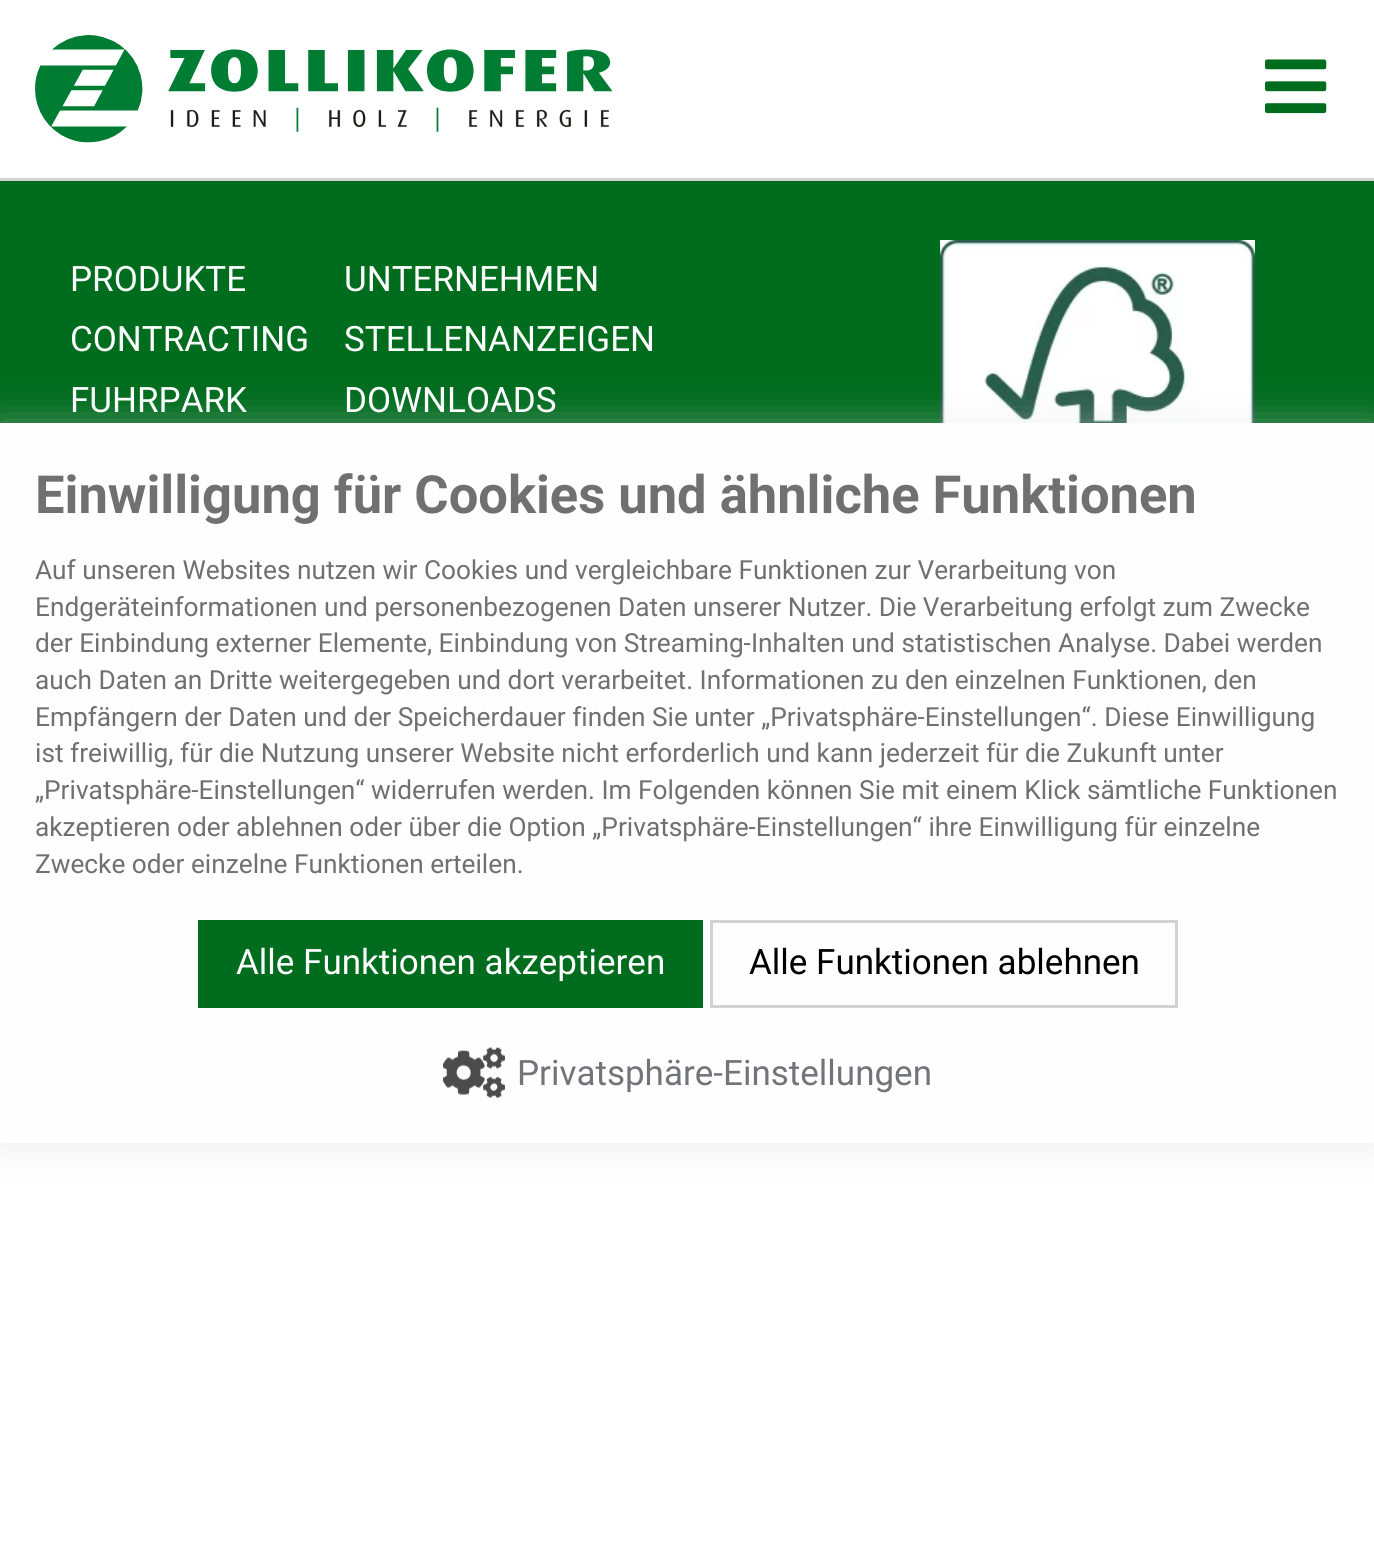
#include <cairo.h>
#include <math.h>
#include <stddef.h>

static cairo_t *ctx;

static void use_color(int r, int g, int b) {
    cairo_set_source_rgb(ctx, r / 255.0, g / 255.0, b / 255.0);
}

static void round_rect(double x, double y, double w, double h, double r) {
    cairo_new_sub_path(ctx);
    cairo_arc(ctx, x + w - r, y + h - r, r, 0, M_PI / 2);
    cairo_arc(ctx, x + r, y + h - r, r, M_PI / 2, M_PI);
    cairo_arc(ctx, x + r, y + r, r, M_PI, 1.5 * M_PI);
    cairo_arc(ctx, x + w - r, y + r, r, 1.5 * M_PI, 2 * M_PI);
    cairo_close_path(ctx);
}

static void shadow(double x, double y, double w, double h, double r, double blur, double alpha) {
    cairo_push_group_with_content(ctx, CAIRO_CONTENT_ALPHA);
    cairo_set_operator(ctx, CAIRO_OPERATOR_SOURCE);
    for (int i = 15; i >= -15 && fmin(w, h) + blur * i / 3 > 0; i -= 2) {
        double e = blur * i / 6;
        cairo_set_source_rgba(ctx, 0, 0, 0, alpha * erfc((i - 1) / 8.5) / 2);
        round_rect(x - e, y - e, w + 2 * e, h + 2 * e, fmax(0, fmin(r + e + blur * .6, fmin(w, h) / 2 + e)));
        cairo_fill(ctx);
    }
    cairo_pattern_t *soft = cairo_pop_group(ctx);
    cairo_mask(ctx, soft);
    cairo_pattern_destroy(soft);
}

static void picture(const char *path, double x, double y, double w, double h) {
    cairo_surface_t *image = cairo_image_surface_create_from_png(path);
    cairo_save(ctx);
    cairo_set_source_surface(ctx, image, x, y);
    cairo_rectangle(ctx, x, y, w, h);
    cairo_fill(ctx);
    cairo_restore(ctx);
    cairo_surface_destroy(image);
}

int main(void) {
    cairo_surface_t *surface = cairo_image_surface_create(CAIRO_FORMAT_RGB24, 1374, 1564);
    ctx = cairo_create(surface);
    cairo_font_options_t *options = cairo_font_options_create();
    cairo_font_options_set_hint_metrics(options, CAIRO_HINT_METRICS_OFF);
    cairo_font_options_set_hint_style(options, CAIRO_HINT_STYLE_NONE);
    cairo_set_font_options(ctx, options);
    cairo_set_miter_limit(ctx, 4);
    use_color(255, 255, 255);
    cairo_paint(ctx);
    use_color(210, 210, 210);
    cairo_rectangle(ctx, 0, 178, 1374, 3);
    cairo_fill(ctx);
    picture("img1.png", 35, 35, 578, 108);
    picture("img2.png", 1265, 59, 62, 55);
    use_color(0, 108, 30);
    cairo_rectangle(ctx, 0, 181, 1374, 242);
    cairo_fill(ctx);
    cairo_select_font_face(ctx, "Roboto", CAIRO_FONT_SLANT_NORMAL, CAIRO_FONT_WEIGHT_NORMAL);
    cairo_set_font_size(ctx, 35);
    use_color(255, 255, 255);
    cairo_move_to(ctx, 70, 291);
    cairo_show_text(ctx, "PRODUKTE");
    cairo_move_to(ctx, 70, 351);
    cairo_show_text(ctx, "CONTRACTING");
    cairo_move_to(ctx, 70, 412);
    cairo_show_text(ctx, "FUHRPARK");
    cairo_move_to(ctx, 344, 291);
    cairo_show_text(ctx, "UNTERNEHMEN");
    cairo_move_to(ctx, 344, 351);
    cairo_show_text(ctx, "STELLENANZEIGEN");
    cairo_move_to(ctx, 344, 412);
    cairo_show_text(ctx, "DOWNLOADS");
    picture("img3.png", 940, 240, 315, 183);
    use_color(221, 221, 221);
    shadow(0, 428, 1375, 720, 0, 19, 0.5);
    use_color(254, 254, 254);
    cairo_rectangle(ctx, 0, 423, 1374, 720);
    cairo_fill(ctx);
    cairo_select_font_face(ctx, "Roboto", CAIRO_FONT_SLANT_NORMAL, CAIRO_FONT_WEIGHT_BOLD);
    cairo_set_font_size(ctx, 52.5);
    use_color(112, 112, 112);
    cairo_move_to(ctx, 35, 513);
    cairo_show_text(ctx, "Einwilligung für Cookies und ähnliche Funktionen");
    cairo_select_font_face(ctx, "Roboto", CAIRO_FONT_SLANT_NORMAL, CAIRO_FONT_WEIGHT_NORMAL);
    cairo_set_font_size(ctx, 26.25);
    cairo_move_to(ctx, 35, 579);
    cairo_show_text(ctx, "Auf unseren Websites nutzen wir Cookies und vergleichbare Funktionen zur Verarbeitung von");
    cairo_move_to(ctx, 35, 616);
    cairo_show_text(ctx, "Endgeräteinformationen und personenbezogenen Daten unserer Nutzer. Die Verarbeitung erfolgt zum Zwecke");
    cairo_move_to(ctx, 35, 652);
    cairo_show_text(ctx, "der Einbindung externer Elemente, Einbindung von Streaming-Inhalten und statistischen Analyse. Dabei werden");
    cairo_move_to(ctx, 35, 689);
    cairo_show_text(ctx, "auch Daten an Dritte weitergegeben und dort verarbeitet. Informationen zu den einzelnen Funktionen, den");
    cairo_move_to(ctx, 35, 726);
    cairo_show_text(ctx, "Empfängern der Daten und der Speicherdauer finden Sie unter „Privatsphäre-Einstellungen“. Diese Einwilligung");
    cairo_move_to(ctx, 35, 762);
    cairo_show_text(ctx, "ist freiwillig, für die Nutzung unserer Website nicht erforderlich und kann jederzeit für die Zukunft unter");
    cairo_move_to(ctx, 35, 799);
    cairo_show_text(ctx, "„Privatsphäre-Einstellungen“ widerrufen werden. Im Folgenden können Sie mit einem Klick sämtliche Funktionen");
    cairo_move_to(ctx, 35, 836);
    cairo_show_text(ctx, "akzeptieren oder ablehnen oder über die Option „Privatsphäre-Einstellungen“ ihre Einwilligung für einzelne");
    cairo_move_to(ctx, 35, 873);
    cairo_show_text(ctx, "Zwecke oder einzelne Funktionen erteilen.");
    use_color(0, 108, 30);
    cairo_rectangle(ctx, 198, 920, 505, 88);
    cairo_fill(ctx);
    cairo_set_font_size(ctx, 35);
    use_color(255, 255, 255);
    cairo_move_to(ctx, 236, 974);
    cairo_show_text(ctx, "Alle Funktionen akzeptieren");
    cairo_rectangle(ctx, 711.5, 921.5, 465, 85);
    use_color(210, 210, 210);
    cairo_set_line_width(ctx, 3);
    cairo_stroke(ctx);
    use_color(0, 0, 0);
    cairo_move_to(ctx, 749, 974);
    cairo_show_text(ctx, "Alle Funktionen ablehnen");
    picture("img4.png", 443, 1047, 62, 51);
    use_color(113, 117, 121);
    cairo_move_to(ctx, 517, 1085);
    cairo_show_text(ctx, "Privatsphäre-Einstellungen");
    cairo_surface_write_to_png(surface, "result.png");
    cairo_font_options_destroy(options);
    cairo_destroy(ctx);
    cairo_surface_destroy(surface);
    return 0;
}
